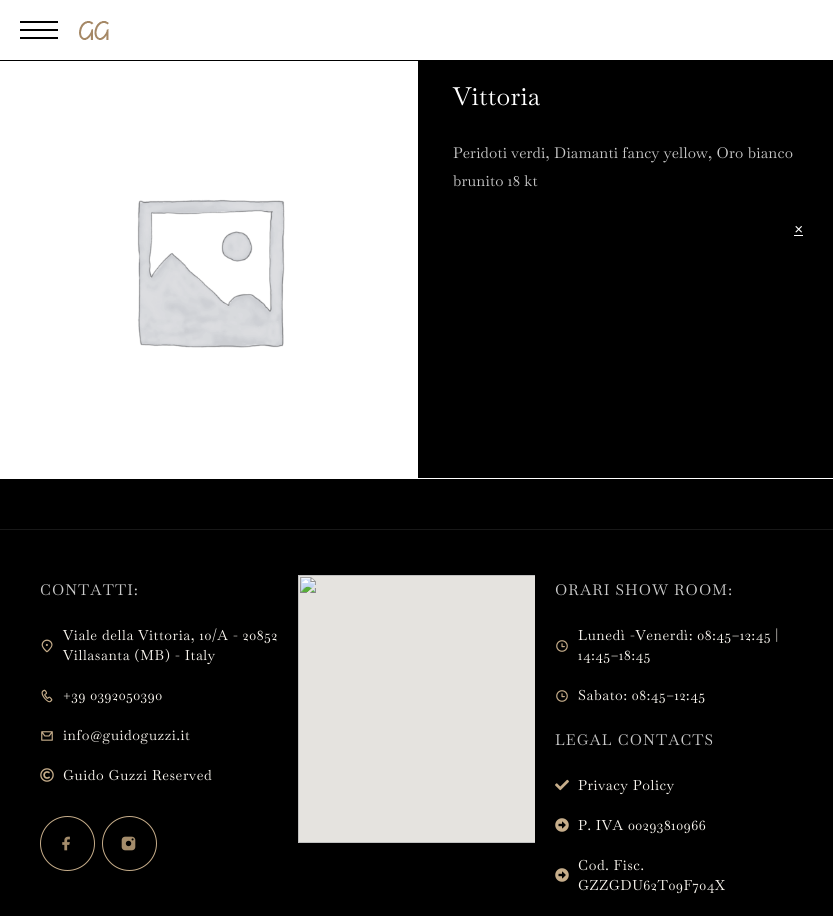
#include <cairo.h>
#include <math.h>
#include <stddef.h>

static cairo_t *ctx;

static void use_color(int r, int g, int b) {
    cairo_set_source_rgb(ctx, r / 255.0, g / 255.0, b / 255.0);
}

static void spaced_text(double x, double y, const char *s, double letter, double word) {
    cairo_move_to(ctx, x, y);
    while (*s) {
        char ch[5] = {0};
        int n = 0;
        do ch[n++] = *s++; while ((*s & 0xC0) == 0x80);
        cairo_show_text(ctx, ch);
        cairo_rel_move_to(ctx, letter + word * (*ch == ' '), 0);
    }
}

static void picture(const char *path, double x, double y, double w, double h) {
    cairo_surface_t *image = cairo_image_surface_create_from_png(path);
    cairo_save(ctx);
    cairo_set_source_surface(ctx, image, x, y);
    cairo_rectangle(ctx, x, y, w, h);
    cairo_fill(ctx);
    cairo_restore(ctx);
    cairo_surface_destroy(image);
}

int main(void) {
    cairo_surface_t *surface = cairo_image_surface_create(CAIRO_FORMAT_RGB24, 833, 916);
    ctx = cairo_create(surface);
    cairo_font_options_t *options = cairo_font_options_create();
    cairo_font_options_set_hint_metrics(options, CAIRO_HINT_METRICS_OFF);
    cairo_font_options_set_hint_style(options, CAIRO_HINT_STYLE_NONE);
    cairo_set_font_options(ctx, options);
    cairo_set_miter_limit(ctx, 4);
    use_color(0, 0, 0);
    cairo_paint(ctx);
    use_color(255, 255, 255);
    cairo_rectangle(ctx, 0, 0, 833, 60);
    cairo_fill(ctx);
    use_color(0, 0, 0);
    cairo_new_path(ctx);
    cairo_move_to(ctx, 58, 37);
    cairo_line_to(ctx, 58, 39);
    cairo_line_to(ctx, 20, 39);
    cairo_line_to(ctx, 20, 37);
    cairo_close_path(ctx);
    cairo_move_to(ctx, 58, 29);
    cairo_line_to(ctx, 58, 31);
    cairo_line_to(ctx, 20, 31);
    cairo_line_to(ctx, 20, 29);
    cairo_close_path(ctx);
    cairo_move_to(ctx, 58, 21);
    cairo_line_to(ctx, 58, 23);
    cairo_line_to(ctx, 20, 23);
    cairo_line_to(ctx, 20, 21);
    cairo_close_path(ctx);
    cairo_fill(ctx);
    picture("img1.png", 79, 21, 30, 19);
    use_color(255, 255, 255);
    cairo_rectangle(ctx, 0, 478, 833, 1);
    cairo_fill(ctx);
    picture("img2.png", 0, 61, 417, 417);
    cairo_rectangle(ctx, 417, 61, 1, 418);
    cairo_fill(ctx);
    cairo_select_font_face(ctx, "Baskervville", CAIRO_FONT_SLANT_NORMAL, CAIRO_FONT_WEIGHT_NORMAL);
    cairo_set_font_size(ctx, 25);
    spaced_text(453, 105, "Vittoria", 0.25, 0);
    cairo_set_font_size(ctx, 15);
    use_color(204, 204, 204);
    spaced_text(453, 158, "Peridoti verdi, Diamanti fancy yellow, Oro bianco", 0.2, 0);
    spaced_text(453, 186, "brunito 18 kt", 0.2, 0);
    cairo_select_font_face(ctx, "Baskervville", CAIRO_FONT_SLANT_NORMAL, CAIRO_FONT_WEIGHT_BOLD);
    cairo_set_font_size(ctx, 16);
    use_color(255, 255, 255);
    cairo_move_to(ctx, 794, 234);
    cairo_show_text(ctx, "×");
    cairo_rectangle(ctx, 794, 235, 9, 1);
    cairo_fill(ctx);
    use_color(24, 24, 24);
    cairo_rectangle(ctx, 0, 529, 833, 1);
    cairo_fill(ctx);
    cairo_select_font_face(ctx, "Baskervville", CAIRO_FONT_SLANT_NORMAL, CAIRO_FONT_WEIGHT_NORMAL);
    cairo_set_font_size(ctx, 15);
    use_color(204, 204, 204);
    spaced_text(40, 595, "CONTATTI:", 1.1, 0);
    picture("img3.png", 41, 639, 12, 14);
    cairo_set_font_size(ctx, 14);
    use_color(253, 249, 242);
    spaced_text(63, 640, "Viale della Vittoria, 10/A - 20852", 0.6, 0);
    spaced_text(63, 660, "Villasanta (MB) - Italy", 0.6, 0);
    picture("img4.png", 41, 689, 12, 14);
    spaced_text(63, 700, "+39 0392050390", 0.6, 0);
    picture("img5.png", 41, 731, 12, 10);
    spaced_text(63, 740, "info@guidoguzzi.it", 0.6, 0);
    picture("img6.png", 40, 768, 14, 14);
    spaced_text(63, 780, "Guido Guzzi Reserved", 0.6, 0);
    picture("img7.png", 62, 836, 8, 15);
    cairo_arc(ctx, 67.5, 843.5, 27, 0, 2 * M_PI);
    use_color(198, 173, 138);
    cairo_set_line_width(ctx, 1);
    cairo_stroke(ctx);
    picture("img8.png", 121, 836, 15, 15);
    cairo_arc(ctx, 129.5, 843.5, 27, 0, 2 * M_PI);
    cairo_stroke(ctx);
    picture("img9.png", 298, 575, 237, 268);
    cairo_set_font_size(ctx, 15);
    use_color(204, 204, 204);
    spaced_text(555, 595, "ORARI SHOW ROOM:", 1.1, 0);
    picture("img10.png", 556, 640, 12, 12);
    cairo_set_font_size(ctx, 14);
    use_color(253, 249, 242);
    spaced_text(578, 640, "Lunedì -Venerdì: 08:45–12:45 |", 0.6, 0);
    spaced_text(578, 660, "14:45–18:45", 0.6, 0);
    picture("img10.png", 556, 690, 12, 12);
    spaced_text(578, 700, "Sabato: 08:45–12:45", 0.6, 0);
    cairo_set_font_size(ctx, 15);
    use_color(204, 204, 204);
    spaced_text(555, 745, "LEGAL CONTACTS", 1.1, 0);
    picture("img11.png", 555, 779, 14, 12);
    cairo_set_font_size(ctx, 14);
    use_color(253, 249, 242);
    spaced_text(578, 790, "Privacy Policy", 0.6, 0);
    picture("img12.png", 555, 818, 14, 14);
    spaced_text(578, 830, "P. IVA 00293810966", 0.6, 0);
    picture("img12.png", 555, 868, 14, 14);
    spaced_text(578, 870, "Cod. Fisc.", 0.6, 0);
    spaced_text(578, 890, "GZZGDU62T09F704X", 0.6, 0);
    cairo_surface_write_to_png(surface, "result.png");
    cairo_font_options_destroy(options);
    cairo_destroy(ctx);
    cairo_surface_destroy(surface);
    return 0;
}
